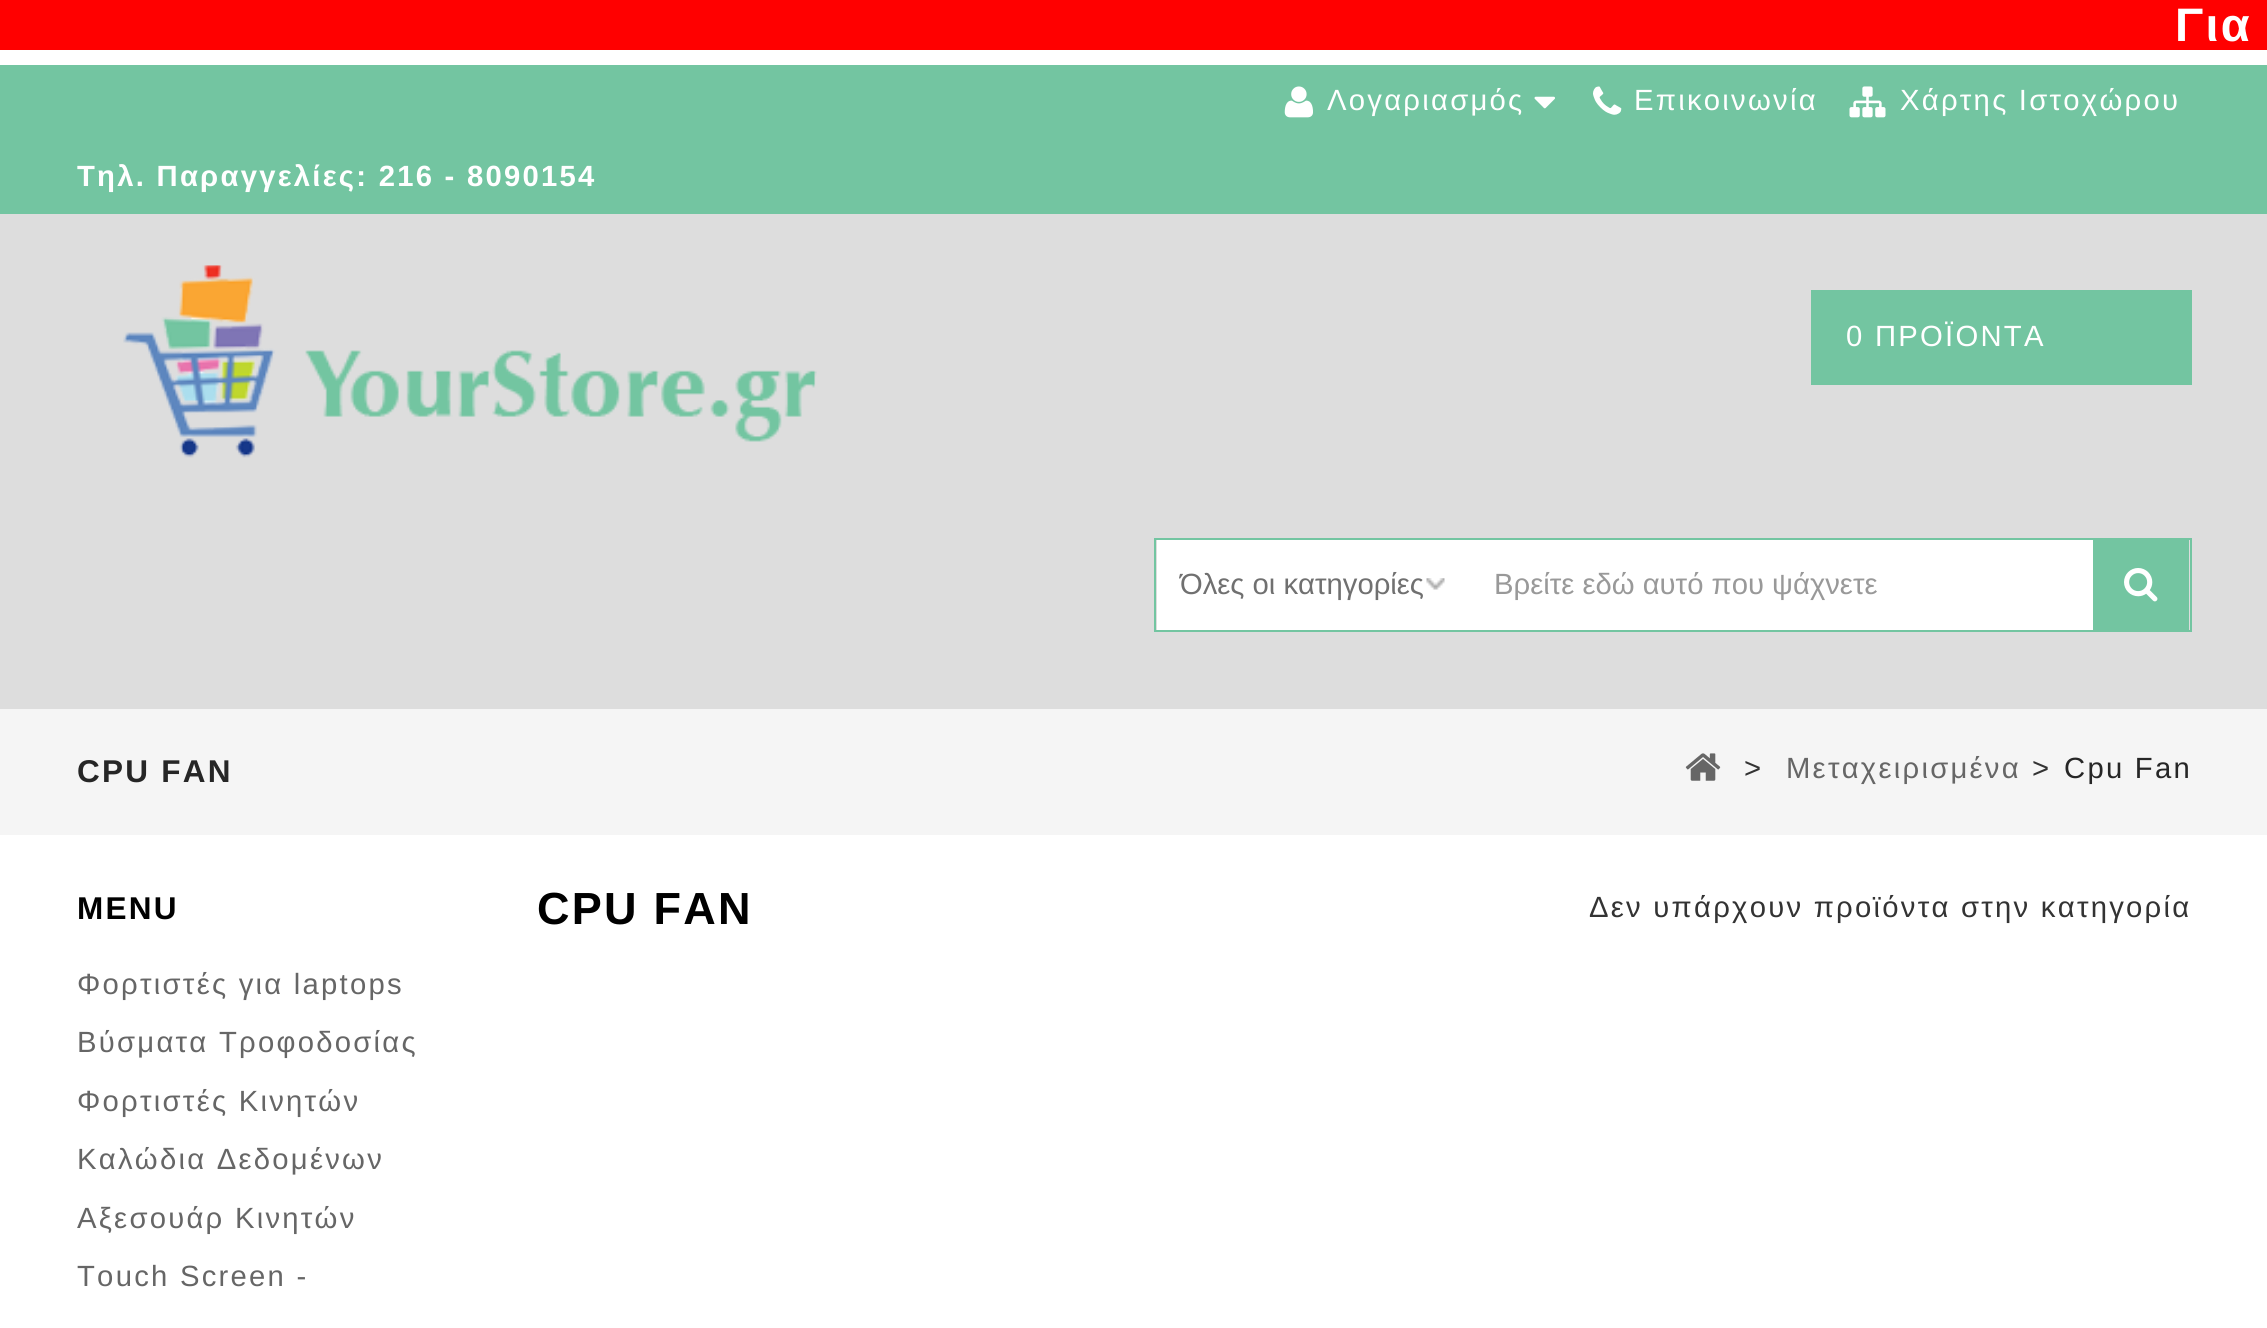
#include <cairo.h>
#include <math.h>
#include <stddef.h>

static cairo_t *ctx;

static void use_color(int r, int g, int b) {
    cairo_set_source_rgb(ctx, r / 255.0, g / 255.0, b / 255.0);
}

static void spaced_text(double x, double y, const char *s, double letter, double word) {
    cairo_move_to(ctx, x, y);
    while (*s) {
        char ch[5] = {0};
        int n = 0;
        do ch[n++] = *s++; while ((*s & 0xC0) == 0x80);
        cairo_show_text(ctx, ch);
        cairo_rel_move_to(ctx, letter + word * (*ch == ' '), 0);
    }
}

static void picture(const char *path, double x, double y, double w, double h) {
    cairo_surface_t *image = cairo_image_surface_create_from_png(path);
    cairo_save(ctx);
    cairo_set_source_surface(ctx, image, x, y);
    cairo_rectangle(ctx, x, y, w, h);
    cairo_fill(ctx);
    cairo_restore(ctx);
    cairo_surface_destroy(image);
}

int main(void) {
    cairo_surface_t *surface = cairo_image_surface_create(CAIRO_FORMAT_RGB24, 2267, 1328);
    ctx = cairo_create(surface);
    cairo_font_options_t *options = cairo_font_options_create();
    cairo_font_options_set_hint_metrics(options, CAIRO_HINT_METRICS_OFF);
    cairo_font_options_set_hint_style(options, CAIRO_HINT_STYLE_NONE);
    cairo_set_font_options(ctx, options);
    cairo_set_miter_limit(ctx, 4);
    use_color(255, 255, 255);
    cairo_paint(ctx);
    use_color(255, 0, 0);
    cairo_rectangle(ctx, 0, 0, 2267, 50);
    cairo_fill(ctx);
    cairo_select_font_face(ctx, "Liberation Sans", CAIRO_FONT_SLANT_NORMAL, CAIRO_FONT_WEIGHT_BOLD);
    cairo_set_font_size(ctx, 47);
    use_color(255, 255, 255);
    spaced_text(2175, 41, "Για", 2.25, 0);
    use_color(115, 197, 161);
    cairo_rectangle(ctx, 0, 65, 2267, 149);
    cairo_fill(ctx);
    picture("img1.png", 1284, 86, 29, 32);
    cairo_select_font_face(ctx, "Liberation Sans", CAIRO_FONT_SLANT_NORMAL, CAIRO_FONT_WEIGHT_NORMAL);
    cairo_set_font_size(ctx, 29.25);
    use_color(255, 255, 255);
    spaced_text(1327, 110, "Λογαριασμός", 2.25, 0);
    picture("img2.png", 1534, 96, 21, 13);
    picture("img3.png", 1593, 86, 29, 29);
    spaced_text(1634, 110, "Επικοινωνία", 2.25, 0);
    picture("img4.png", 1849, 86, 37, 32);
    spaced_text(1900, 110, "Χάρτης Ιστοχώρου", 2.25, 0);
    cairo_select_font_face(ctx, "Liberation Sans", CAIRO_FONT_SLANT_NORMAL, CAIRO_FONT_WEIGHT_BOLD);
    spaced_text(77, 186, "Τηλ. Παραγγελίες: 216 - 8090154", 2.25, 0);
    use_color(221, 221, 221);
    cairo_rectangle(ctx, 0, 214, 2267, 495);
    cairo_fill(ctx);
    picture("img5.png", 123, 265, 694, 193);
    use_color(115, 197, 161);
    cairo_rectangle(ctx, 1811, 290, 381, 95);
    cairo_fill(ctx);
    cairo_select_font_face(ctx, "Liberation Sans", CAIRO_FONT_SLANT_NORMAL, CAIRO_FONT_WEIGHT_NORMAL);
    use_color(255, 255, 255);
    spaced_text(1846, 346, "0 ΠΡΟΪΟΝΤΑ", 2.25, 0);
    cairo_rectangle(ctx, 1155, 539, 1036, 92);
    use_color(115, 197, 161);
    cairo_stroke(ctx);
    use_color(255, 255, 255);
    cairo_rectangle(ctx, 1157, 540, 936, 90);
    cairo_fill(ctx);
    picture("img6.png", 1426, 578, 19, 12);
    use_color(112, 112, 112);
    cairo_move_to(ctx, 1180, 594);
    cairo_show_text(ctx, "Όλες οι κατηγορίες");
    use_color(153, 153, 153);
    cairo_move_to(ctx, 1494, 594);
    cairo_show_text(ctx, "Βρείτε εδώ αυτό που ψάχνετε");
    use_color(115, 197, 161);
    cairo_rectangle(ctx, 2093, 540, 96, 90);
    cairo_fill(ctx);
    picture("img7.png", 2124, 568, 34, 34);
    use_color(245, 245, 245);
    cairo_rectangle(ctx, 0, 709, 2267, 126);
    cairo_fill(ctx);
    cairo_select_font_face(ctx, "Liberation Sans", CAIRO_FONT_SLANT_NORMAL, CAIRO_FONT_WEIGHT_BOLD);
    cairo_set_font_size(ctx, 31.5);
    use_color(38, 38, 38);
    spaced_text(77, 782, "CPU FAN", 2.25, 0);
    picture("img8.png", 1685, 753, 36, 28);
    cairo_select_font_face(ctx, "Liberation Sans", CAIRO_FONT_SLANT_NORMAL, CAIRO_FONT_WEIGHT_NORMAL);
    cairo_set_font_size(ctx, 29.25);
    use_color(51, 51, 51);
    spaced_text(1744, 778, ">", 2.25, 0);
    use_color(102, 102, 102);
    spaced_text(1786, 778, "Μεταχειρισμένα", 2.25, 0);
    use_color(51, 51, 51);
    spaced_text(2032, 778, ">", 2.25, 0);
    use_color(38, 38, 38);
    spaced_text(2064, 778, "Cpu Fan", 2.25, 0);
    cairo_select_font_face(ctx, "Liberation Sans", CAIRO_FONT_SLANT_NORMAL, CAIRO_FONT_WEIGHT_BOLD);
    cairo_set_font_size(ctx, 31.5);
    use_color(0, 0, 0);
    spaced_text(77, 919, "MENU", 2.25, 0);
    cairo_select_font_face(ctx, "Liberation Sans", CAIRO_FONT_SLANT_NORMAL, CAIRO_FONT_WEIGHT_NORMAL);
    cairo_set_font_size(ctx, 29.25);
    use_color(102, 102, 102);
    spaced_text(77, 994, "Φορτιστές για laptops", 2.25, 0);
    spaced_text(77, 1052, "Βύσματα Τροφοδοσίας", 2.25, 0);
    spaced_text(77, 1111, "Φορτιστές Κινητών", 2.25, 0);
    spaced_text(77, 1169, "Καλώδια Δεδομένων", 2.25, 0);
    spaced_text(77, 1228, "Αξεσουάρ Κινητών", 2.25, 0);
    spaced_text(77, 1286, "Touch Screen -", 2.25, 0);
    cairo_select_font_face(ctx, "Liberation Sans", CAIRO_FONT_SLANT_NORMAL, CAIRO_FONT_WEIGHT_BOLD);
    cairo_set_font_size(ctx, 45);
    use_color(0, 0, 0);
    spaced_text(537, 924, "CPU FAN", 2.25, 0);
    cairo_select_font_face(ctx, "Liberation Sans", CAIRO_FONT_SLANT_NORMAL, CAIRO_FONT_WEIGHT_NORMAL);
    cairo_set_font_size(ctx, 29.25);
    use_color(51, 51, 51);
    spaced_text(1589, 917, "Δεν υπάρχουν προϊόντα στην κατηγορία", 2.25, 0);
    cairo_surface_write_to_png(surface, "result.png");
    cairo_font_options_destroy(options);
    cairo_destroy(ctx);
    cairo_surface_destroy(surface);
    return 0;
}
